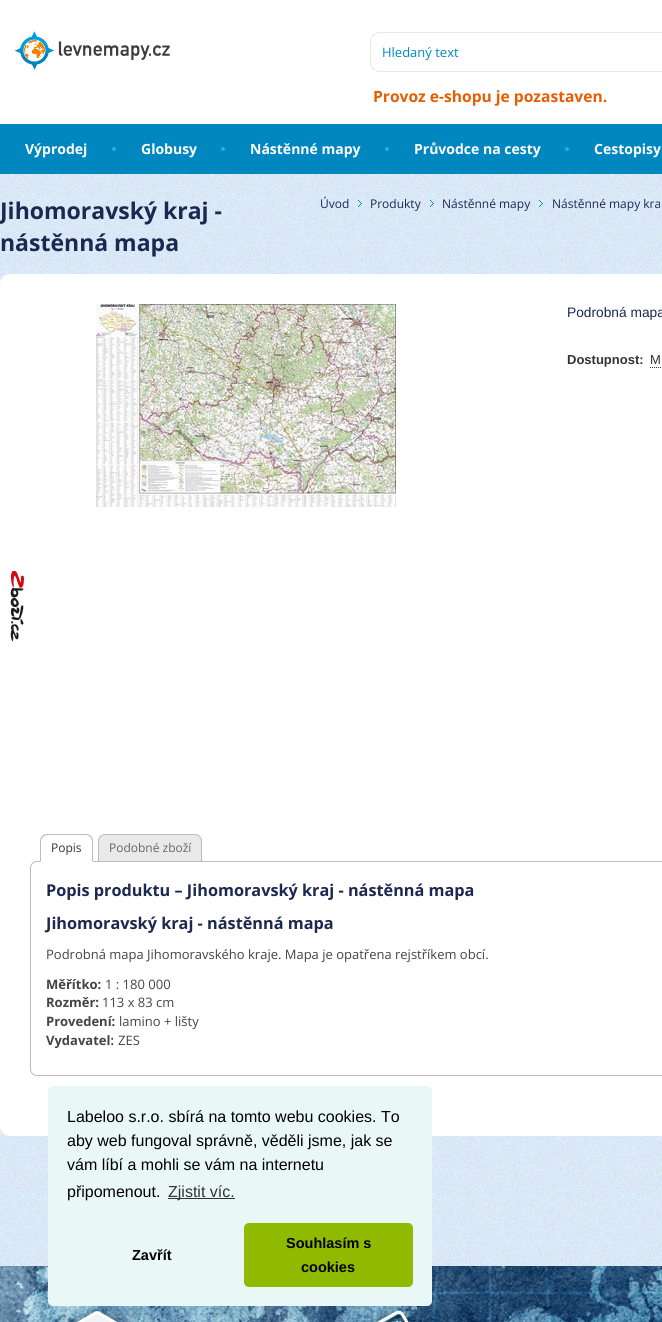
#include <cairo.h>
#include <math.h>
#include <stddef.h>

static cairo_t *ctx;

static void use_color(int r, int g, int b) {
    cairo_set_source_rgb(ctx, r / 255.0, g / 255.0, b / 255.0);
}

static void round_rect(double x, double y, double w, double h, double r) {
    cairo_new_sub_path(ctx);
    cairo_arc(ctx, x + w - r, y + h - r, r, 0, M_PI / 2);
    cairo_arc(ctx, x + r, y + h - r, r, M_PI / 2, M_PI);
    cairo_arc(ctx, x + r, y + r, r, M_PI, 1.5 * M_PI);
    cairo_arc(ctx, x + w - r, y + r, r, 1.5 * M_PI, 2 * M_PI);
    cairo_close_path(ctx);
}

static void picture(const char *path, double x, double y, double w, double h) {
    cairo_surface_t *image = cairo_image_surface_create_from_png(path);
    cairo_save(ctx);
    cairo_set_source_surface(ctx, image, x, y);
    cairo_rectangle(ctx, x, y, w, h);
    cairo_fill(ctx);
    cairo_restore(ctx);
    cairo_surface_destroy(image);
}

int main(void) {
    cairo_surface_t *surface = cairo_image_surface_create(CAIRO_FORMAT_RGB24, 662, 1322);
    ctx = cairo_create(surface);
    cairo_font_options_t *options = cairo_font_options_create();
    cairo_font_options_set_hint_metrics(options, CAIRO_HINT_METRICS_OFF);
    cairo_font_options_set_hint_style(options, CAIRO_HINT_STYLE_NONE);
    cairo_set_font_options(ctx, options);
    cairo_set_miter_limit(ctx, 4);
    use_color(255, 255, 255);
    cairo_paint(ctx);
    picture("img1.png", 15, 31, 155, 39);
    round_rect(370.5, 32.5, 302, 39, 9.5);
    use_color(230, 230, 230);
    cairo_set_line_width(ctx, 1);
    cairo_stroke(ctx);
    cairo_select_font_face(ctx, "Open Sans", CAIRO_FONT_SLANT_NORMAL, CAIRO_FONT_WEIGHT_NORMAL);
    cairo_set_font_size(ctx, 13);
    use_color(0, 135, 192);
    cairo_move_to(ctx, 382, 57);
    cairo_show_text(ctx, "Hledaný text");
    cairo_select_font_face(ctx, "Open Sans", CAIRO_FONT_SLANT_NORMAL, CAIRO_FONT_WEIGHT_BOLD);
    cairo_set_font_size(ctx, 15.6);
    use_color(229, 94, 2);
    cairo_move_to(ctx, 373, 102);
    cairo_show_text(ctx, "Provoz e-shopu je pozastaven.");
    use_color(0, 135, 192);
    cairo_rectangle(ctx, 0, 124, 662, 50);
    cairo_fill(ctx);
    cairo_set_font_size(ctx, 14);
    use_color(255, 255, 255);
    cairo_move_to(ctx, 25, 154);
    cairo_show_text(ctx, "Výprodej");
    use_color(28, 177, 239);
    cairo_new_path(ctx);
    cairo_arc(ctx, 114, 149, 2, 0, 2 * M_PI);
    cairo_fill(ctx);
    use_color(255, 255, 255);
    cairo_move_to(ctx, 141, 154);
    cairo_show_text(ctx, "Globusy");
    use_color(28, 177, 239);
    cairo_new_path(ctx);
    cairo_arc(ctx, 223, 149, 2, 0, 2 * M_PI);
    cairo_fill(ctx);
    use_color(255, 255, 255);
    cairo_move_to(ctx, 250, 154);
    cairo_show_text(ctx, "Nástěnné mapy");
    use_color(28, 177, 239);
    cairo_new_path(ctx);
    cairo_arc(ctx, 387, 149, 2, 0, 2 * M_PI);
    cairo_fill(ctx);
    use_color(255, 255, 255);
    cairo_move_to(ctx, 414, 154);
    cairo_show_text(ctx, "Průvodce na cesty");
    use_color(28, 177, 239);
    cairo_new_path(ctx);
    cairo_arc(ctx, 567, 149, 2, 0, 2 * M_PI);
    cairo_fill(ctx);
    use_color(255, 255, 255);
    cairo_move_to(ctx, 594, 154);
    cairo_show_text(ctx, "Cestopisy");
    picture("img2.png", 0, 174, 662, 1092);
    cairo_set_font_size(ctx, 23);
    use_color(29, 40, 80);
    cairo_move_to(ctx, 0, 219);
    cairo_show_text(ctx, "Jihomoravský kraj -");
    cairo_move_to(ctx, 0, 251);
    cairo_show_text(ctx, "nástěnná mapa");
    cairo_select_font_face(ctx, "Open Sans", CAIRO_FONT_SLANT_NORMAL, CAIRO_FONT_WEIGHT_NORMAL);
    cairo_set_font_size(ctx, 12);
    cairo_move_to(ctx, 320, 208);
    cairo_show_text(ctx, "Úvod");
    picture("img3.png", 358, 200, 4, 7);
    cairo_move_to(ctx, 370, 208);
    cairo_show_text(ctx, "Produkty");
    picture("img4.png", 430, 200, 4, 7);
    cairo_move_to(ctx, 442, 208);
    cairo_show_text(ctx, "Nástěnné mapy");
    picture("img5.png", 539, 200, 4, 7);
    cairo_move_to(ctx, 552, 208);
    cairo_show_text(ctx, "Nástěnné mapy kra");
    use_color(255, 255, 255);
    round_rect(0, 274, 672, 862, 10);
    cairo_fill(ctx);
    picture("img6.png", 96, 304, 300, 203);
    cairo_select_font_face(ctx, "Liberation Sans", CAIRO_FONT_SLANT_NORMAL, CAIRO_FONT_WEIGHT_NORMAL);
    cairo_set_font_size(ctx, 13.75);
    use_color(29, 40, 80);
    cairo_move_to(ctx, 567, 317);
    cairo_show_text(ctx, "Podrobná mapa");
    cairo_select_font_face(ctx, "Liberation Sans", CAIRO_FONT_SLANT_NORMAL, CAIRO_FONT_WEIGHT_BOLD);
    cairo_set_font_size(ctx, 13);
    use_color(51, 51, 51);
    cairo_move_to(ctx, 567, 364);
    cairo_show_text(ctx, "Dostupnost:");
    cairo_select_font_face(ctx, "Liberation Sans", CAIRO_FONT_SLANT_NORMAL, CAIRO_FONT_WEIGHT_NORMAL);
    cairo_move_to(ctx, 650, 364);
    cairo_show_text(ctx, "M");
    cairo_new_path(ctx);
    cairo_move_to(ctx, 650, 367.5);
    cairo_line_to(ctx, 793, 367.5);
    cairo_set_dash(ctx, (double[]){1, 1}, 2, 0);
    cairo_stroke(ctx);
    round_rect(30.5, 861.5, 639, 214, 6.5);
    use_color(187, 187, 187);
    cairo_set_dash(ctx, NULL, 0, 0);
    cairo_stroke(ctx);
    use_color(255, 255, 255);
    cairo_new_path(ctx);
    cairo_move_to(ctx, 47, 834);
    cairo_line_to(ctx, 86, 834);
    cairo_curve_to(ctx, 90, 834, 93, 837, 93, 841);
    cairo_line_to(ctx, 93, 862);
    cairo_line_to(ctx, 40, 862);
    cairo_line_to(ctx, 40, 841);
    cairo_curve_to(ctx, 40, 837, 43, 834, 47, 834);
    cairo_close_path(ctx);
    cairo_fill(ctx);
    use_color(187, 187, 187);
    cairo_new_path(ctx);
    cairo_move_to(ctx, 47, 834);
    cairo_curve_to(ctx, 45, 834, 43, 835, 42, 836);
    cairo_line_to(ctx, 43, 837);
    cairo_curve_to(ctx, 44, 836, 46, 835, 47, 835);
    cairo_line_to(ctx, 86, 835);
    cairo_curve_to(ctx, 88, 835, 89, 836, 90, 837);
    cairo_line_to(ctx, 91, 836);
    cairo_curve_to(ctx, 90, 835, 88, 834, 86, 834);
    cairo_close_path(ctx);
    cairo_fill(ctx);
    cairo_new_path(ctx);
    cairo_move_to(ctx, 93, 862);
    cairo_line_to(ctx, 93, 841);
    cairo_curve_to(ctx, 93, 839, 92, 837, 91, 836);
    cairo_line_to(ctx, 90, 837);
    cairo_curve_to(ctx, 91, 838, 92, 839.5, 92, 841);
    cairo_line_to(ctx, 92, 861);
    cairo_close_path(ctx);
    cairo_fill(ctx);
    use_color(255, 255, 255);
    cairo_new_path(ctx);
    cairo_move_to(ctx, 93, 862);
    cairo_line_to(ctx, 92, 861);
    cairo_line_to(ctx, 41, 861);
    cairo_line_to(ctx, 40, 862);
    cairo_close_path(ctx);
    cairo_fill(ctx);
    use_color(187, 187, 187);
    cairo_new_path(ctx);
    cairo_move_to(ctx, 40, 862);
    cairo_line_to(ctx, 41, 861);
    cairo_line_to(ctx, 41, 841);
    cairo_curve_to(ctx, 41, 839.5, 42, 838, 43, 837);
    cairo_line_to(ctx, 42, 836);
    cairo_curve_to(ctx, 41, 837, 40, 839, 40, 841);
    cairo_close_path(ctx);
    cairo_fill(ctx);
    cairo_select_font_face(ctx, "Open Sans", CAIRO_FONT_SLANT_NORMAL, CAIRO_FONT_WEIGHT_NORMAL);
    cairo_set_font_size(ctx, 12);
    use_color(51, 51, 51);
    cairo_move_to(ctx, 51, 852);
    cairo_show_text(ctx, "Popis");
    use_color(233, 233, 233);
    cairo_new_path(ctx);
    cairo_move_to(ctx, 105, 834.5);
    cairo_line_to(ctx, 195, 834.5);
    cairo_curve_to(ctx, 198.5, 834.5, 201.5, 837.5, 201.5, 841);
    cairo_line_to(ctx, 201.5, 861.5);
    cairo_line_to(ctx, 98.5, 861.5);
    cairo_line_to(ctx, 98.5, 841);
    cairo_curve_to(ctx, 98.5, 837.5, 101.5, 834.5, 105, 834.5);
    cairo_close_path(ctx);
    cairo_fill_preserve(ctx);
    use_color(187, 187, 187);
    cairo_stroke(ctx);
    use_color(102, 102, 102);
    cairo_move_to(ctx, 109, 852);
    cairo_show_text(ctx, "Podobné zboží");
    cairo_select_font_face(ctx, "Open Sans", CAIRO_FONT_SLANT_NORMAL, CAIRO_FONT_WEIGHT_BOLD);
    cairo_set_font_size(ctx, 16.25);
    use_color(29, 40, 80);
    cairo_move_to(ctx, 46, 896);
    cairo_show_text(ctx, "Popis produktu – Jihomoravský kraj - nástěnná mapa");
    cairo_move_to(ctx, 46, 929);
    cairo_show_text(ctx, "Jihomoravský kraj - nástěnná mapa");
    cairo_select_font_face(ctx, "Open Sans", CAIRO_FONT_SLANT_NORMAL, CAIRO_FONT_WEIGHT_NORMAL);
    cairo_set_font_size(ctx, 13);
    use_color(68, 68, 68);
    cairo_move_to(ctx, 46, 959);
    cairo_show_text(ctx, "Podrobná mapa Jihomoravského kraje. Mapa je opatřena rejstříkem obcí.");
    cairo_select_font_face(ctx, "Open Sans", CAIRO_FONT_SLANT_NORMAL, CAIRO_FONT_WEIGHT_BOLD);
    cairo_move_to(ctx, 46, 989);
    cairo_show_text(ctx, "Měřítko:");
    cairo_select_font_face(ctx, "Open Sans", CAIRO_FONT_SLANT_NORMAL, CAIRO_FONT_WEIGHT_NORMAL);
    cairo_move_to(ctx, 105, 989);
    cairo_show_text(ctx, "1 : 180 000");
    cairo_select_font_face(ctx, "Open Sans", CAIRO_FONT_SLANT_NORMAL, CAIRO_FONT_WEIGHT_BOLD);
    cairo_move_to(ctx, 46, 1007);
    cairo_show_text(ctx, "Rozměr:");
    cairo_select_font_face(ctx, "Open Sans", CAIRO_FONT_SLANT_NORMAL, CAIRO_FONT_WEIGHT_NORMAL);
    cairo_move_to(ctx, 102, 1007);
    cairo_show_text(ctx, "113 x 83 cm");
    cairo_select_font_face(ctx, "Open Sans", CAIRO_FONT_SLANT_NORMAL, CAIRO_FONT_WEIGHT_BOLD);
    cairo_move_to(ctx, 46, 1026);
    cairo_show_text(ctx, "Provedení:");
    cairo_select_font_face(ctx, "Open Sans", CAIRO_FONT_SLANT_NORMAL, CAIRO_FONT_WEIGHT_NORMAL);
    cairo_move_to(ctx, 119, 1026);
    cairo_show_text(ctx, "lamino + lišty");
    cairo_select_font_face(ctx, "Open Sans", CAIRO_FONT_SLANT_NORMAL, CAIRO_FONT_WEIGHT_BOLD);
    cairo_move_to(ctx, 46, 1045);
    cairo_show_text(ctx, "Vydavatel:");
    cairo_select_font_face(ctx, "Open Sans", CAIRO_FONT_SLANT_NORMAL, CAIRO_FONT_WEIGHT_NORMAL);
    cairo_move_to(ctx, 118, 1045);
    cairo_show_text(ctx, "ZES");
    picture("img7.png", 10, 571, 14, 71);
    picture("img8.png", 0, 1266, 662, 56);
    use_color(234, 247, 247);
    round_rect(48, 1086, 384, 220, 5);
    cairo_fill(ctx);
    cairo_select_font_face(ctx, "Liberation Sans", CAIRO_FONT_SLANT_NORMAL, CAIRO_FONT_WEIGHT_NORMAL);
    cairo_set_font_size(ctx, 16);
    use_color(0, 0, 0);
    cairo_move_to(ctx, 67, 1122);
    cairo_show_text(ctx, "Labeloo s.r.o. sbírá na tomto webu cookies. To");
    cairo_move_to(ctx, 67, 1146);
    cairo_show_text(ctx, "aby web fungoval správně, věděli jsme, jak se");
    cairo_move_to(ctx, 67, 1170);
    cairo_show_text(ctx, "vám líbí a mohli se vám na internetu");
    cairo_move_to(ctx, 67, 1197);
    cairo_show_text(ctx, "připomenout.");
    use_color(47, 49, 49);
    cairo_rectangle(ctx, 168, 1198, 67, 1);
    cairo_fill(ctx);
    use_color(51, 51, 51);
    cairo_move_to(ctx, 168, 1197);
    cairo_show_text(ctx, "Zjistit víc.");
    cairo_select_font_face(ctx, "Liberation Sans", CAIRO_FONT_SLANT_NORMAL, CAIRO_FONT_WEIGHT_BOLD);
    cairo_set_font_size(ctx, 14.5);
    use_color(0, 0, 0);
    cairo_move_to(ctx, 132, 1260);
    cairo_show_text(ctx, "Zavřít");
    use_color(144, 186, 0);
    round_rect(244, 1223, 169, 64, 5);
    cairo_fill(ctx);
    use_color(0, 0, 0);
    cairo_move_to(ctx, 286, 1248);
    cairo_show_text(ctx, "Souhlasím s");
    cairo_move_to(ctx, 301, 1272);
    cairo_show_text(ctx, "cookies");
    picture("img9.png", 63, 1306, 67, 16);
    picture("img10.png", 362, 1306, 55, 16);
    cairo_surface_write_to_png(surface, "result.png");
    cairo_font_options_destroy(options);
    cairo_destroy(ctx);
    cairo_surface_destroy(surface);
    return 0;
}
